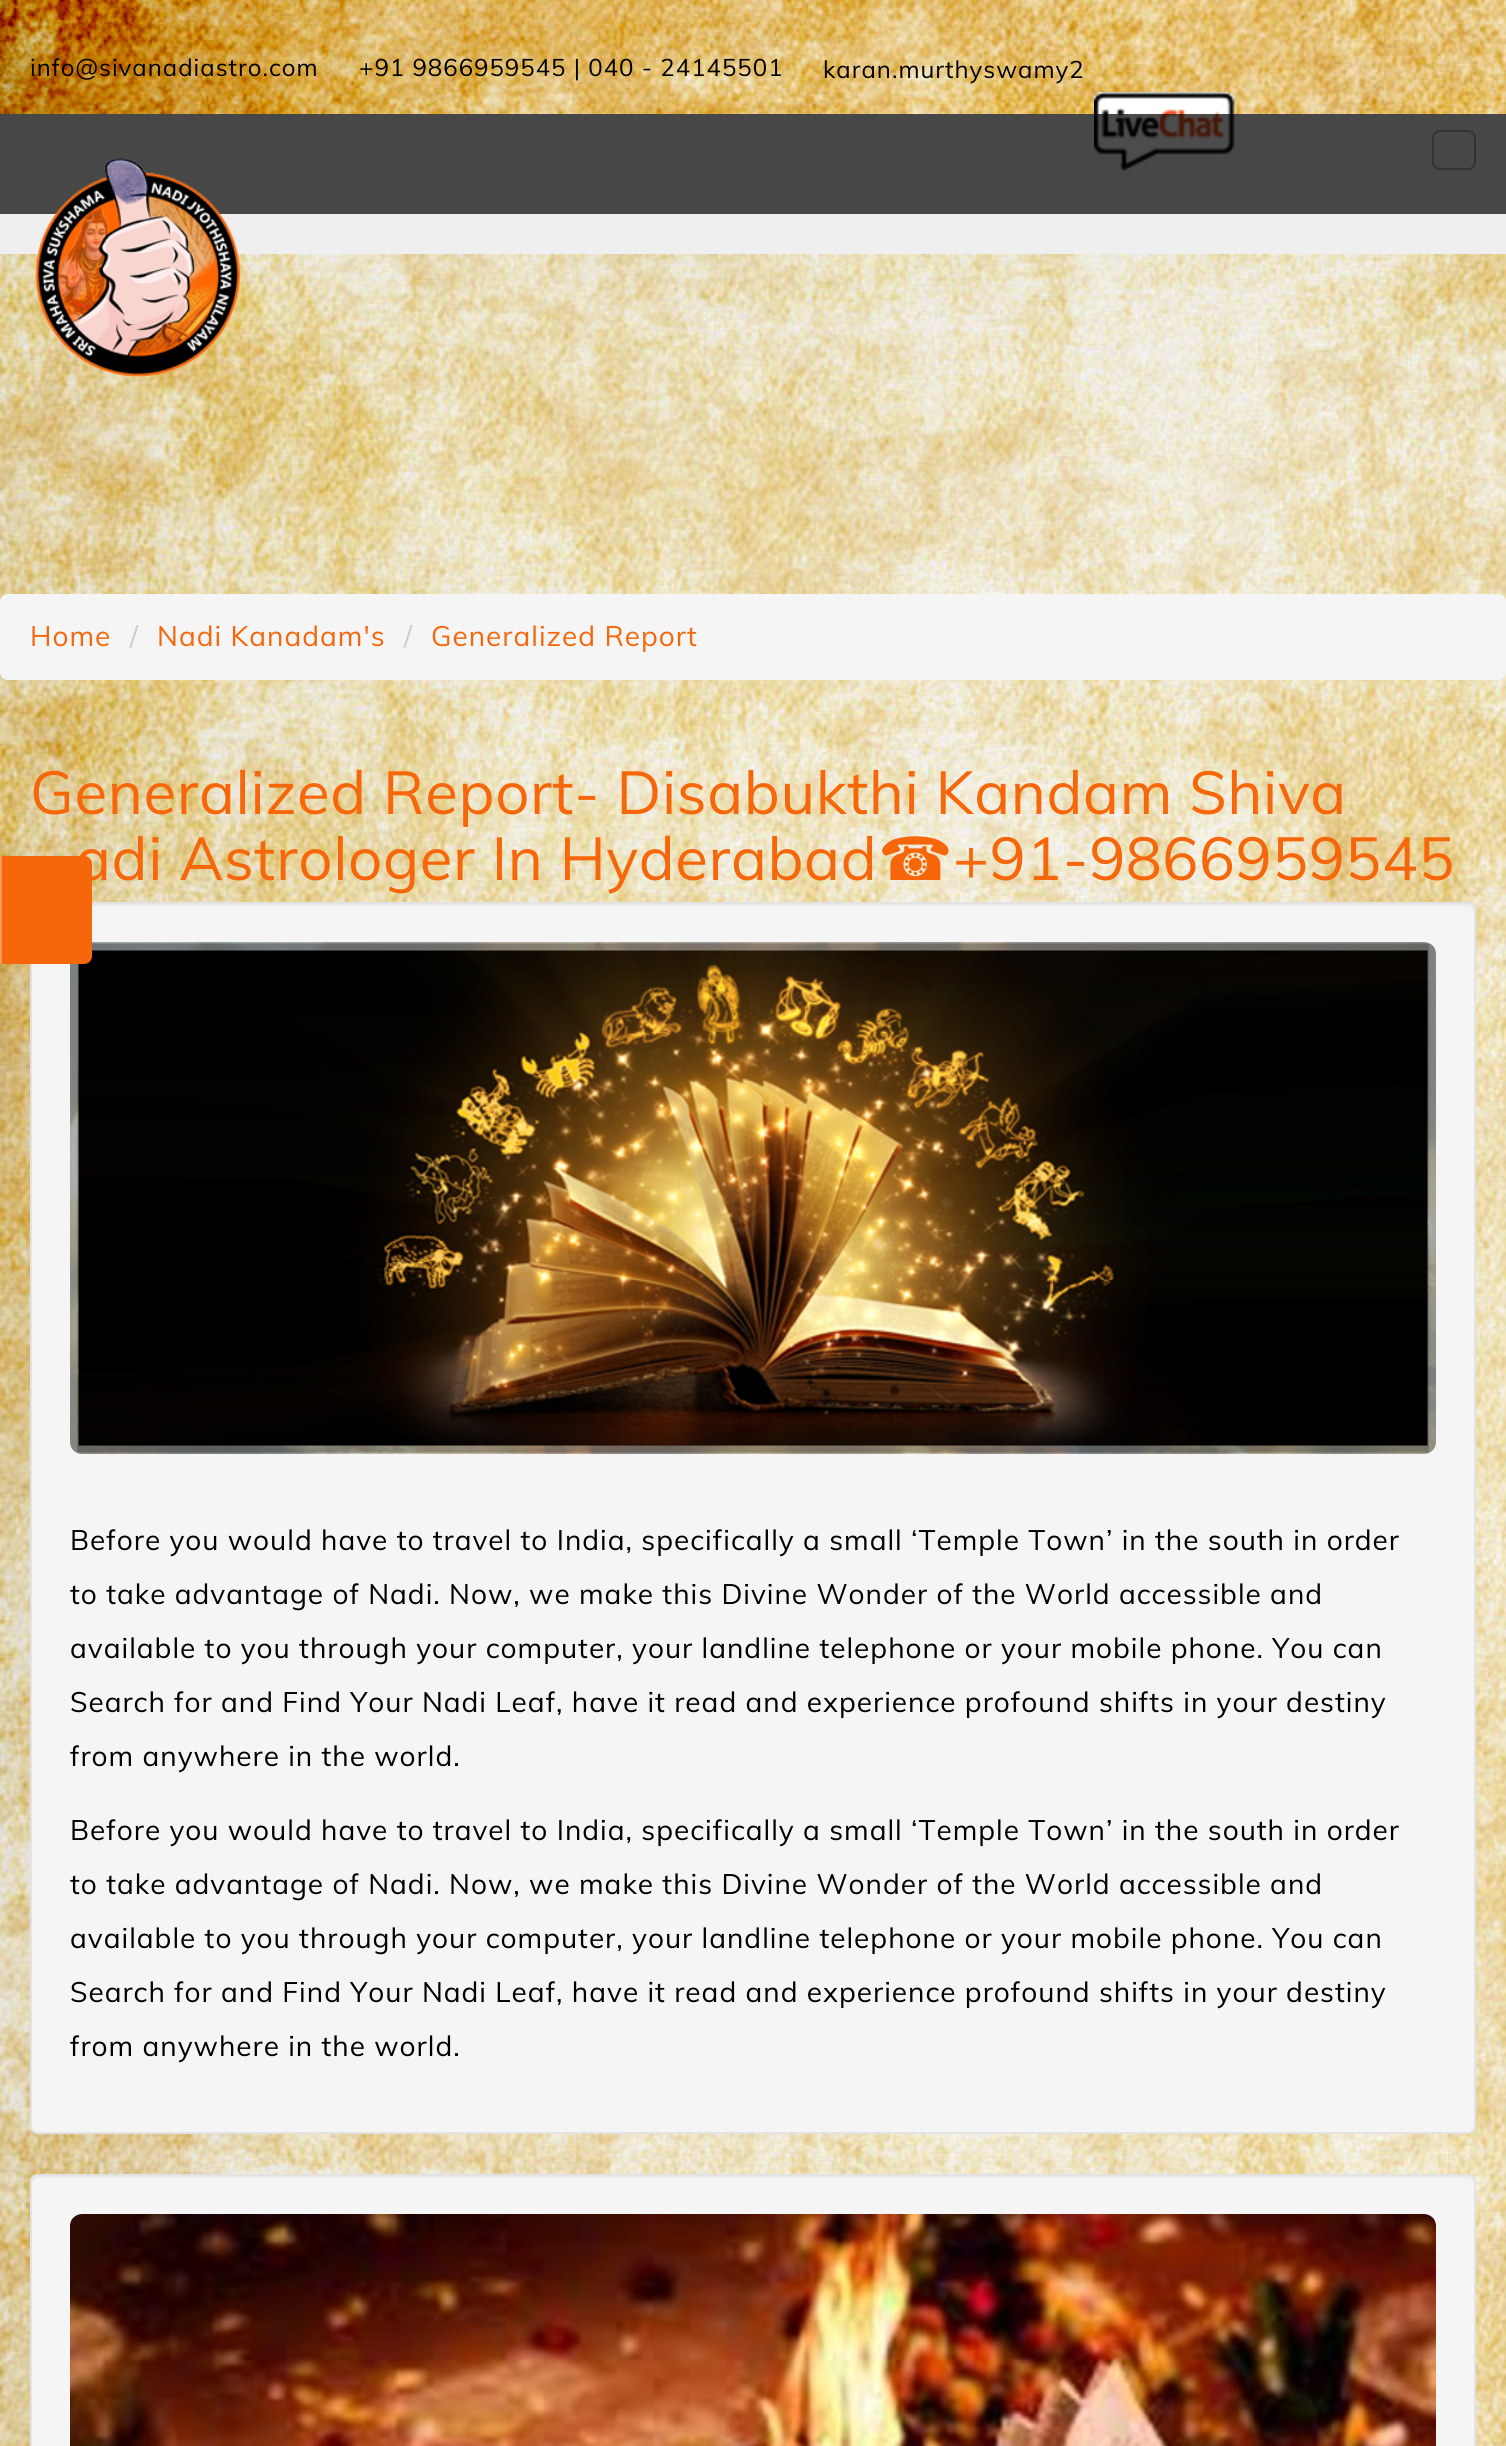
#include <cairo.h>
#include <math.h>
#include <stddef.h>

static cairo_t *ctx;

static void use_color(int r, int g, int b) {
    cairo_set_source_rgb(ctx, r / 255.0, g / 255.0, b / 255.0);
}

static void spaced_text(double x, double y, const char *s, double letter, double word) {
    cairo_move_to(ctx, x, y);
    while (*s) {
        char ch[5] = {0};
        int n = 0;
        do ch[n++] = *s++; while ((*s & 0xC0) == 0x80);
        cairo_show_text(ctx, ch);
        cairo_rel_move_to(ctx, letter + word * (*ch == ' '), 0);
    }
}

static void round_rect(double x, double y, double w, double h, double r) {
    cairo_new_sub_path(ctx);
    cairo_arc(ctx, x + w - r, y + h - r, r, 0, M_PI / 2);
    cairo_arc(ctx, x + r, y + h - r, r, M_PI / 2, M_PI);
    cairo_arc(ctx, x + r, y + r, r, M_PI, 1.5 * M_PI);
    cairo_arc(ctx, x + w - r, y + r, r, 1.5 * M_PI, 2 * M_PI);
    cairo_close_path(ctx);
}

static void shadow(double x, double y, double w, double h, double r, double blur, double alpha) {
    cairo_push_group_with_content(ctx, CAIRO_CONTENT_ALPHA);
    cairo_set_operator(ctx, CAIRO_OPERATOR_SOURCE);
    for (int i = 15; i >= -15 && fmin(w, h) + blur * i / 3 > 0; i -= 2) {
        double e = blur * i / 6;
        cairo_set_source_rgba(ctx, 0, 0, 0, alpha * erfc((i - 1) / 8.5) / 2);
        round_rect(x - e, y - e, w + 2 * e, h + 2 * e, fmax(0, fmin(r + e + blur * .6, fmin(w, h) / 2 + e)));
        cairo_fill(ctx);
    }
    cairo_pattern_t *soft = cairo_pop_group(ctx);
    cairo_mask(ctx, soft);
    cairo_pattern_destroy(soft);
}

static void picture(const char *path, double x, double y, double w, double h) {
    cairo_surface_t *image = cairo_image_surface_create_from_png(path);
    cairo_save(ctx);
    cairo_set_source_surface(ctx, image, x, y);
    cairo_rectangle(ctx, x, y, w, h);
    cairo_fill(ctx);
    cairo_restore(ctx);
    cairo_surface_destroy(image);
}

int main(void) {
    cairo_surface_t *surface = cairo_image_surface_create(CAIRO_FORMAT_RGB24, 1506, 2446);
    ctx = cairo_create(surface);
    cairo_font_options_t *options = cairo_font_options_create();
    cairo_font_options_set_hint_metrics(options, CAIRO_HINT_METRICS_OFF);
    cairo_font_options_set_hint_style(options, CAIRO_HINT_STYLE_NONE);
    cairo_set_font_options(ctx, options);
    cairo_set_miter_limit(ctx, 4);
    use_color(239, 239, 239);
    cairo_paint(ctx);
    picture("img1.png", 0, 0, 1506, 114);
    cairo_select_font_face(ctx, "Muli", CAIRO_FONT_SLANT_NORMAL, CAIRO_FONT_WEIGHT_NORMAL);
    cairo_set_font_size(ctx, 24);
    use_color(0, 0, 0);
    spaced_text(30, 76, "info@sivanadiastro.com", 1, 0);
    spaced_text(359, 76, "+91 9866959545 | 040 - 24145501", 1, 0);
    spaced_text(823, 78, "karan.murthyswamy2", 1, 0);
    picture("img2.png", 1094, 92, 141, 79);
    cairo_set_source_rgba(ctx, 0, 0, 0, 0.7);
    cairo_rectangle(ctx, 0, 114, 1506, 100);
    cairo_fill(ctx);
    round_rect(1433, 131, 42, 38, 7);
    use_color(51, 51, 51);
    cairo_stroke(ctx);
    picture("img4.png", 0, 254, 1506, 2192);
    picture("img3.png", 35, 158, 206, 219);
    use_color(245, 245, 245);
    round_rect(0, 594, 1506, 86, 8);
    cairo_fill(ctx);
    cairo_set_font_size(ctx, 28);
    use_color(246, 102, 10);
    spaced_text(30, 646, "Home", 1, 0);
    use_color(204, 204, 204);
    spaced_text(130, 646, "/", 1, 0);
    use_color(246, 102, 10);
    spaced_text(157, 646, "Nadi Kanadam's", 1, 0);
    use_color(204, 204, 204);
    spaced_text(404, 646, "/", 1, 0);
    use_color(246, 102, 10);
    spaced_text(431, 646, "Generalized Report", 1, 0);
    cairo_set_font_size(ctx, 60);
    spaced_text(30, 814, "Generalized Report- Disabukthi Kandam Shiva", 0.6, 0);
    spaced_text(75, 880, "adi Astrologer In Hyderabad", 0.6, 0);
    cairo_select_font_face(ctx, "DejaVu Sans", CAIRO_FONT_SLANT_NORMAL, CAIRO_FONT_WEIGHT_NORMAL);
    spaced_text(878, 880, "☎", 0.6, 0);
    cairo_select_font_face(ctx, "Muli", CAIRO_FONT_SLANT_NORMAL, CAIRO_FONT_WEIGHT_NORMAL);
    spaced_text(953, 880, "+91-9866959545", 0.6, 0);
    use_color(245, 245, 245);
    round_rect(30, 902, 1446, 1232, 8);
    cairo_fill(ctx);
    use_color(233, 233, 233);
    cairo_new_path(ctx);
    cairo_move_to(ctx, 38, 906);
    cairo_line_to(ctx, 1468, 906);
    cairo_curve_to(ctx, 1471, 906, 1474, 909, 1474, 912);
    cairo_curve_to(ctx, 1474, 908, 1473, 904, 1468, 904);
    cairo_line_to(ctx, 38, 904);
    cairo_curve_to(ctx, 33, 904, 32, 908, 32, 912);
    cairo_curve_to(ctx, 32, 909, 35, 906, 38, 906);
    cairo_close_path(ctx);
    cairo_fill(ctx);
    round_rect(31, 903, 1444, 1230, 7);
    use_color(227, 227, 227);
    cairo_stroke(ctx);
    picture("img5.png", 70, 942, 1366, 512);
    cairo_set_font_size(ctx, 28);
    use_color(0, 0, 0);
    spaced_text(70, 1550, "Before you would have to travel to India, specifically a small ‘Temple Town’ in the south in order", 1, 0);
    spaced_text(70, 1604, "to take advantage of Nadi. Now, we make this Divine Wonder of the World accessible and", 1, 0);
    spaced_text(70, 1658, "available to you through your computer, your landline telephone or your mobile phone. You can", 1, 0);
    spaced_text(70, 1712, "Search for and Find Your Nadi Leaf, have it read and experience profound shifts in your destiny", 1, 0);
    spaced_text(70, 1766, "from anywhere in the world.", 1, 0);
    spaced_text(70, 1840, "Before you would have to travel to India, specifically a small ‘Temple Town’ in the south in order", 1, 0);
    spaced_text(70, 1894, "to take advantage of Nadi. Now, we make this Divine Wonder of the World accessible and", 1, 0);
    spaced_text(70, 1948, "available to you through your computer, your landline telephone or your mobile phone. You can", 1, 0);
    spaced_text(70, 2002, "Search for and Find Your Nadi Leaf, have it read and experience profound shifts in your destiny", 1, 0);
    spaced_text(70, 2056, "from anywhere in the world.", 1, 0);
    use_color(245, 245, 245);
    round_rect(30, 2174, 1446, 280, 8);
    cairo_fill(ctx);
    use_color(233, 233, 233);
    cairo_new_path(ctx);
    cairo_move_to(ctx, 38, 2178);
    cairo_line_to(ctx, 1468, 2178);
    cairo_curve_to(ctx, 1471, 2178, 1474, 2181, 1474, 2184);
    cairo_curve_to(ctx, 1474, 2180, 1473, 2176, 1468, 2176);
    cairo_line_to(ctx, 38, 2176);
    cairo_curve_to(ctx, 33, 2176, 32, 2180, 32, 2184);
    cairo_curve_to(ctx, 32, 2181, 35, 2178, 38, 2178);
    cairo_close_path(ctx);
    cairo_fill(ctx);
    round_rect(31, 2175, 1444, 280, 7);
    use_color(227, 227, 227);
    cairo_stroke(ctx);
    picture("img6.png", 70, 2214, 1366, 232);
    use_color(0, 0, 0);
    shadow(-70, 854, 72, 292, 10, 20, 0.1);
    use_color(246, 102, 10);
    cairo_new_path(ctx);
    cairo_move_to(ctx, 0, 856);
    cairo_line_to(ctx, 84, 856);
    cairo_curve_to(ctx, 88.5, 856, 92, 859.5, 92, 864);
    cairo_line_to(ctx, 92, 956);
    cairo_curve_to(ctx, 92, 960.5, 88.5, 964, 84, 964);
    cairo_line_to(ctx, 0, 964);
    cairo_close_path(ctx);
    cairo_fill(ctx);
    use_color(249, 152, 91);
    cairo_rectangle(ctx, 0, 856, 2, 108);
    cairo_fill(ctx);
    cairo_surface_write_to_png(surface, "result.png");
    cairo_font_options_destroy(options);
    cairo_destroy(ctx);
    cairo_surface_destroy(surface);
    return 0;
}
